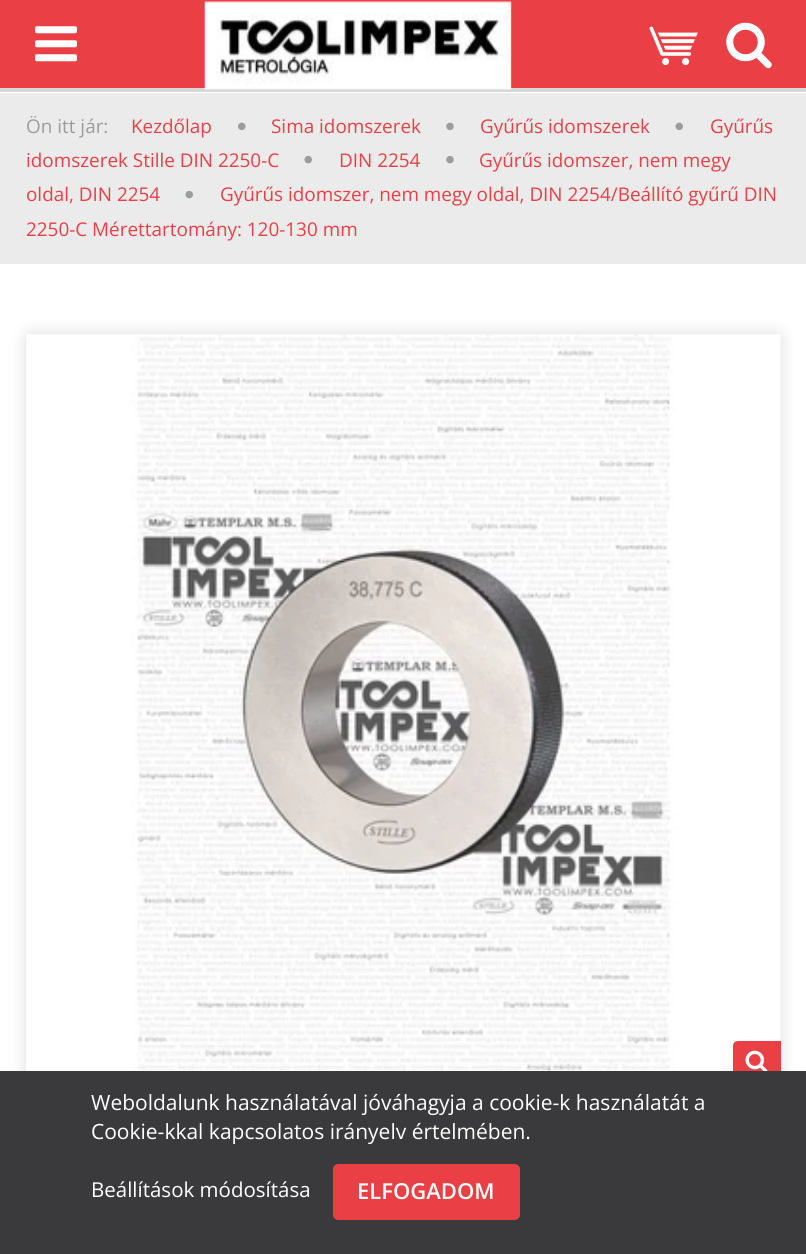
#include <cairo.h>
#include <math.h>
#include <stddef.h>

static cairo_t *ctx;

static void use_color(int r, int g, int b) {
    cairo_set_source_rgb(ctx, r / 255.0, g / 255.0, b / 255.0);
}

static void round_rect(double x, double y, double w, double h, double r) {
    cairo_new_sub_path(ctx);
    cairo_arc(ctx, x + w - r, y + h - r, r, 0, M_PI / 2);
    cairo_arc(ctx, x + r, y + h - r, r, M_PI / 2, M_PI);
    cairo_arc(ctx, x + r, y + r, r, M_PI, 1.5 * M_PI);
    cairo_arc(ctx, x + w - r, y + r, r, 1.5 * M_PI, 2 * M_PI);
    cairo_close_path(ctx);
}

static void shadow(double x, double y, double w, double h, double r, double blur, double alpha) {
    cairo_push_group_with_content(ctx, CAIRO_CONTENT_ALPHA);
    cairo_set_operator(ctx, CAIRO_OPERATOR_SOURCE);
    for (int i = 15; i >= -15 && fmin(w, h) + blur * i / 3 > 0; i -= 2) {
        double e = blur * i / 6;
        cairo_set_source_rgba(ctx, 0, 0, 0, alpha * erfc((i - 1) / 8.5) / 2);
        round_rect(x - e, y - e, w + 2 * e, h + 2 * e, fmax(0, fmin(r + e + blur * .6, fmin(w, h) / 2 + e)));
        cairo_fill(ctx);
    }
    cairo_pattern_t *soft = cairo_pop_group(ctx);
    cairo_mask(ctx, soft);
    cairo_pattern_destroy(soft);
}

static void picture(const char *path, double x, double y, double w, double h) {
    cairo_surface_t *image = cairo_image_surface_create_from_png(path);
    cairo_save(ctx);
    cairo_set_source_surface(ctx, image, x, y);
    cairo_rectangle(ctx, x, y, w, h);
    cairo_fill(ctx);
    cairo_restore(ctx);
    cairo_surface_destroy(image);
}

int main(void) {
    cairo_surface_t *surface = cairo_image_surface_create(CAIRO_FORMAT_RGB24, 806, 1254);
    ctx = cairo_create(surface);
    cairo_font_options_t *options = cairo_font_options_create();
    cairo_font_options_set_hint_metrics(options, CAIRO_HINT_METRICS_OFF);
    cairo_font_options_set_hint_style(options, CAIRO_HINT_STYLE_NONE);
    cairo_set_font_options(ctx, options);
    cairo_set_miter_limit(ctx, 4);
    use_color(255, 255, 255);
    cairo_paint(ctx);
    use_color(233, 63, 69);
    cairo_rectangle(ctx, 0, 0, 806, 88);
    cairo_fill(ctx);
    picture("img1.png", 35, 26, 42, 36);
    use_color(215, 215, 215);
    cairo_rectangle(ctx, 0, 88, 806, 4);
    cairo_fill(ctx);
    picture("img2.png", 204, 1, 308, 89);
    picture("img3.png", 649, 26, 49, 39);
    picture("img4.png", 726, 22, 46, 47);
    use_color(235, 235, 235);
    cairo_rectangle(ctx, 0, 93, 806, 171);
    cairo_fill(ctx);
    cairo_select_font_face(ctx, "Open Sans", CAIRO_FONT_SLANT_NORMAL, CAIRO_FONT_WEIGHT_NORMAL);
    cairo_set_font_size(ctx, 18.9);
    use_color(155, 156, 156);
    cairo_move_to(ctx, 26, 133);
    cairo_show_text(ctx, "Ön itt jár:");
    use_color(233, 63, 69);
    cairo_move_to(ctx, 131, 133);
    cairo_show_text(ctx, "Kezdőlap");
    picture("img5.png", 238, 122, 8, 9);
    cairo_move_to(ctx, 271, 133);
    cairo_show_text(ctx, "Sima idomszerek");
    picture("img6.png", 446, 122, 8, 9);
    cairo_move_to(ctx, 480, 133);
    cairo_show_text(ctx, "Gyűrűs idomszerek");
    picture("img7.png", 675, 122, 8, 9);
    cairo_move_to(ctx, 710, 133);
    cairo_show_text(ctx, "Gyűrűs");
    cairo_move_to(ctx, 26, 167);
    cairo_show_text(ctx, "idomszerek Stille DIN 2250-C");
    picture("img8.png", 304, 155, 8, 9);
    cairo_move_to(ctx, 339, 167);
    cairo_show_text(ctx, "DIN 2254");
    picture("img9.png", 446, 155, 8, 9);
    cairo_move_to(ctx, 479, 167);
    cairo_show_text(ctx, "Gyűrűs idomszer, nem megy");
    cairo_move_to(ctx, 26, 201);
    cairo_show_text(ctx, "oldal, DIN 2254");
    picture("img8.png", 185, 190, 8, 9);
    cairo_move_to(ctx, 220, 201);
    cairo_show_text(ctx, "Gyűrűs idomszer, nem megy oldal, DIN 2254/Beállító gyűrű DIN");
    cairo_move_to(ctx, 26, 236);
    cairo_show_text(ctx, "2250-C Mérettartomány: 120-130 mm");
    use_color(0, 0, 0);
    shadow(23, 331, 761, 761, 9, 7, 0.1);
    picture("img10.png", 26, 334, 755, 737);
    use_color(233, 63, 69);
    cairo_new_path(ctx);
    cairo_move_to(ctx, 738, 1041);
    cairo_line_to(ctx, 781, 1041);
    cairo_line_to(ctx, 781, 1084);
    cairo_curve_to(ctx, 781, 1087, 779, 1089, 776, 1089);
    cairo_line_to(ctx, 733, 1089);
    cairo_line_to(ctx, 733, 1046);
    cairo_curve_to(ctx, 733, 1043, 735, 1041, 738, 1041);
    cairo_close_path(ctx);
    cairo_fill(ctx);
    picture("img11.png", 745, 1050, 23, 21);
    use_color(58, 57, 59);
    cairo_rectangle(ctx, 0, 1071, 806, 183);
    cairo_fill(ctx);
    cairo_set_font_size(ctx, 21);
    use_color(255, 255, 255);
    cairo_move_to(ctx, 91, 1110);
    cairo_show_text(ctx, "Weboldalunk használatával jóváhagyja a cookie-k használatát a");
    cairo_move_to(ctx, 91, 1139);
    cairo_show_text(ctx, "Cookie-kkal kapcsolatos irányelv értelmében.");
    cairo_set_font_size(ctx, 20.5);
    cairo_move_to(ctx, 91, 1197);
    cairo_show_text(ctx, "Beállítások módosítása");
    use_color(233, 63, 69);
    round_rect(335, 1166, 183, 52, 3);
    cairo_fill_preserve(ctx);
    cairo_set_line_width(ctx, 4);
    cairo_stroke(ctx);
    cairo_select_font_face(ctx, "Open Sans SemiBold", CAIRO_FONT_SLANT_NORMAL, CAIRO_FONT_WEIGHT_NORMAL);
    cairo_set_font_size(ctx, 22);
    use_color(255, 255, 255);
    cairo_move_to(ctx, 357, 1199);
    cairo_show_text(ctx, "ELFOGADOM");
    cairo_surface_write_to_png(surface, "result.png");
    cairo_font_options_destroy(options);
    cairo_destroy(ctx);
    cairo_surface_destroy(surface);
    return 0;
}
